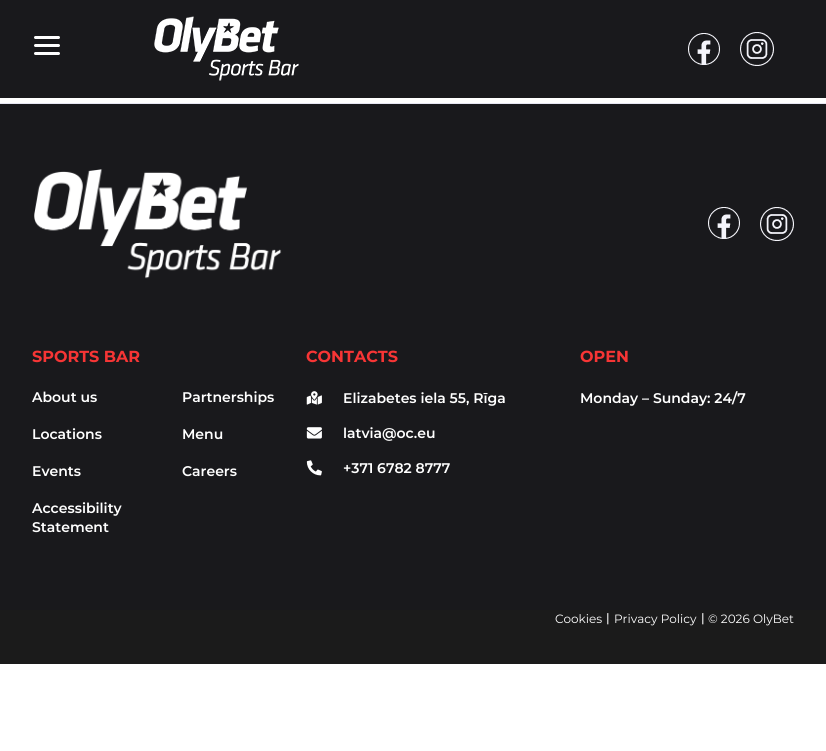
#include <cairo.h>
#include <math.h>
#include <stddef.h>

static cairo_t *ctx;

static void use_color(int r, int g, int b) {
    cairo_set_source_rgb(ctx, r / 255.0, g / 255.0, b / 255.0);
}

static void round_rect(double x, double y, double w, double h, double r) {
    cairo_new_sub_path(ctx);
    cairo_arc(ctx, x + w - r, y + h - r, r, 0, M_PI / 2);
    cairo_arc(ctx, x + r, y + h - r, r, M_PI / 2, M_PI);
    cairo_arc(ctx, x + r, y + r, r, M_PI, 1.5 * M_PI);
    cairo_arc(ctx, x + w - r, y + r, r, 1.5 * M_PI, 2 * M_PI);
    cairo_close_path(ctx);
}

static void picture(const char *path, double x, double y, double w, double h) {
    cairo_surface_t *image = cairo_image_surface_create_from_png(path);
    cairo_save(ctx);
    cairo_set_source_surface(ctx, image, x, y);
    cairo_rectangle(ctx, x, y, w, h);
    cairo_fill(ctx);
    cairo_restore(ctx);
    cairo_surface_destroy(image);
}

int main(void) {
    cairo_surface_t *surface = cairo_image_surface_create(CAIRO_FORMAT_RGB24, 826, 751);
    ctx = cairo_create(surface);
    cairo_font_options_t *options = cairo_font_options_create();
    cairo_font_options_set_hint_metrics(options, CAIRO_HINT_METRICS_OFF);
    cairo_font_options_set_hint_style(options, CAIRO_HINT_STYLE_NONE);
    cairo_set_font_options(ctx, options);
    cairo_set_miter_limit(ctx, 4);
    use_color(255, 255, 255);
    cairo_paint(ctx);
    use_color(25, 25, 28);
    cairo_rectangle(ctx, 0, 0, 826, 98);
    cairo_fill(ctx);
    use_color(255, 255, 255);
    round_rect(34, 36, 26, 3, 1.5);
    cairo_fill(ctx);
    round_rect(34, 44, 26, 3, 1.5);
    cairo_fill(ctx);
    round_rect(34, 52, 26, 3, 1.5);
    cairo_fill(ctx);
    picture("img1.png", 154, 16, 145, 65);
    picture("img2.png", 688, 33, 32, 32);
    picture("img3.png", 740, 32, 34, 34);
    use_color(25, 25, 28);
    cairo_rectangle(ctx, 0, 104, 826, 506);
    cairo_fill(ctx);
    use_color(230, 230, 242);
    cairo_rectangle(ctx, 0, 103, 826, 1);
    cairo_fill(ctx);
    picture("img4.png", 34, 169, 248, 110);
    picture("img2.png", 708, 207, 32, 32);
    picture("img3.png", 760, 207, 34, 34);
    cairo_select_font_face(ctx, "Montserrat", CAIRO_FONT_SLANT_NORMAL, CAIRO_FONT_WEIGHT_BOLD);
    cairo_set_font_size(ctx, 16);
    use_color(247, 53, 53);
    cairo_move_to(ctx, 32, 362);
    cairo_show_text(ctx, "SPORTS BAR");
    cairo_select_font_face(ctx, "Montserrat SemiBold", CAIRO_FONT_SLANT_NORMAL, CAIRO_FONT_WEIGHT_NORMAL);
    cairo_set_font_size(ctx, 14);
    use_color(255, 255, 255);
    cairo_move_to(ctx, 32, 402);
    cairo_show_text(ctx, "About us");
    cairo_move_to(ctx, 32, 439);
    cairo_show_text(ctx, "Locations");
    cairo_move_to(ctx, 32, 476);
    cairo_show_text(ctx, "Events");
    cairo_move_to(ctx, 32, 513);
    cairo_show_text(ctx, "Accessibility");
    cairo_move_to(ctx, 32, 532);
    cairo_show_text(ctx, "Statement");
    cairo_move_to(ctx, 182, 402);
    cairo_show_text(ctx, "Partnerships");
    cairo_move_to(ctx, 182, 439);
    cairo_show_text(ctx, "Menu");
    cairo_move_to(ctx, 182, 476);
    cairo_show_text(ctx, "Careers");
    cairo_select_font_face(ctx, "Montserrat", CAIRO_FONT_SLANT_NORMAL, CAIRO_FONT_WEIGHT_BOLD);
    cairo_set_font_size(ctx, 16);
    use_color(247, 53, 53);
    cairo_move_to(ctx, 306, 362);
    cairo_show_text(ctx, "CONTACTS");
    picture("img5.png", 306, 391, 16, 14);
    cairo_select_font_face(ctx, "Montserrat SemiBold", CAIRO_FONT_SLANT_NORMAL, CAIRO_FONT_WEIGHT_NORMAL);
    cairo_set_font_size(ctx, 14);
    use_color(255, 255, 255);
    cairo_move_to(ctx, 343, 403);
    cairo_show_text(ctx, "Elizabetes iela 55, Rīga");
    picture("img6.png", 306, 427, 16, 12);
    cairo_move_to(ctx, 343, 438);
    cairo_show_text(ctx, "latvia@oc.eu");
    picture("img7.png", 306, 460, 16, 16);
    cairo_move_to(ctx, 343, 473);
    cairo_show_text(ctx, "+371 6782 8777");
    cairo_select_font_face(ctx, "Montserrat", CAIRO_FONT_SLANT_NORMAL, CAIRO_FONT_WEIGHT_BOLD);
    cairo_set_font_size(ctx, 16);
    use_color(247, 53, 53);
    cairo_move_to(ctx, 580, 362);
    cairo_show_text(ctx, "OPEN");
    cairo_select_font_face(ctx, "Montserrat SemiBold", CAIRO_FONT_SLANT_NORMAL, CAIRO_FONT_WEIGHT_NORMAL);
    cairo_set_font_size(ctx, 14);
    use_color(255, 255, 255);
    cairo_move_to(ctx, 580, 403);
    cairo_show_text(ctx, "Monday – Sunday: 24/7");
    use_color(27, 27, 27);
    cairo_rectangle(ctx, 0, 610, 826, 54);
    cairo_fill(ctx);
    cairo_select_font_face(ctx, "Montserrat", CAIRO_FONT_SLANT_NORMAL, CAIRO_FONT_WEIGHT_NORMAL);
    cairo_set_font_size(ctx, 12);
    use_color(255, 255, 255);
    cairo_move_to(ctx, 555, 623);
    cairo_show_text(ctx, "Cookies");
    cairo_select_font_face(ctx, "Montserrat Medium", CAIRO_FONT_SLANT_NORMAL, CAIRO_FONT_WEIGHT_NORMAL);
    cairo_move_to(ctx, 606, 622);
    cairo_show_text(ctx, "|");
    cairo_select_font_face(ctx, "Montserrat", CAIRO_FONT_SLANT_NORMAL, CAIRO_FONT_WEIGHT_NORMAL);
    cairo_move_to(ctx, 614, 623);
    cairo_show_text(ctx, "Privacy Policy");
    cairo_select_font_face(ctx, "Montserrat Medium", CAIRO_FONT_SLANT_NORMAL, CAIRO_FONT_WEIGHT_NORMAL);
    cairo_move_to(ctx, 701, 622);
    cairo_show_text(ctx, "|");
    cairo_select_font_face(ctx, "Montserrat", CAIRO_FONT_SLANT_NORMAL, CAIRO_FONT_WEIGHT_NORMAL);
    cairo_move_to(ctx, 708, 623);
    cairo_show_text(ctx, "© 2026 OlyBet");
    cairo_surface_write_to_png(surface, "result.png");
    cairo_font_options_destroy(options);
    cairo_destroy(ctx);
    cairo_surface_destroy(surface);
    return 0;
}
